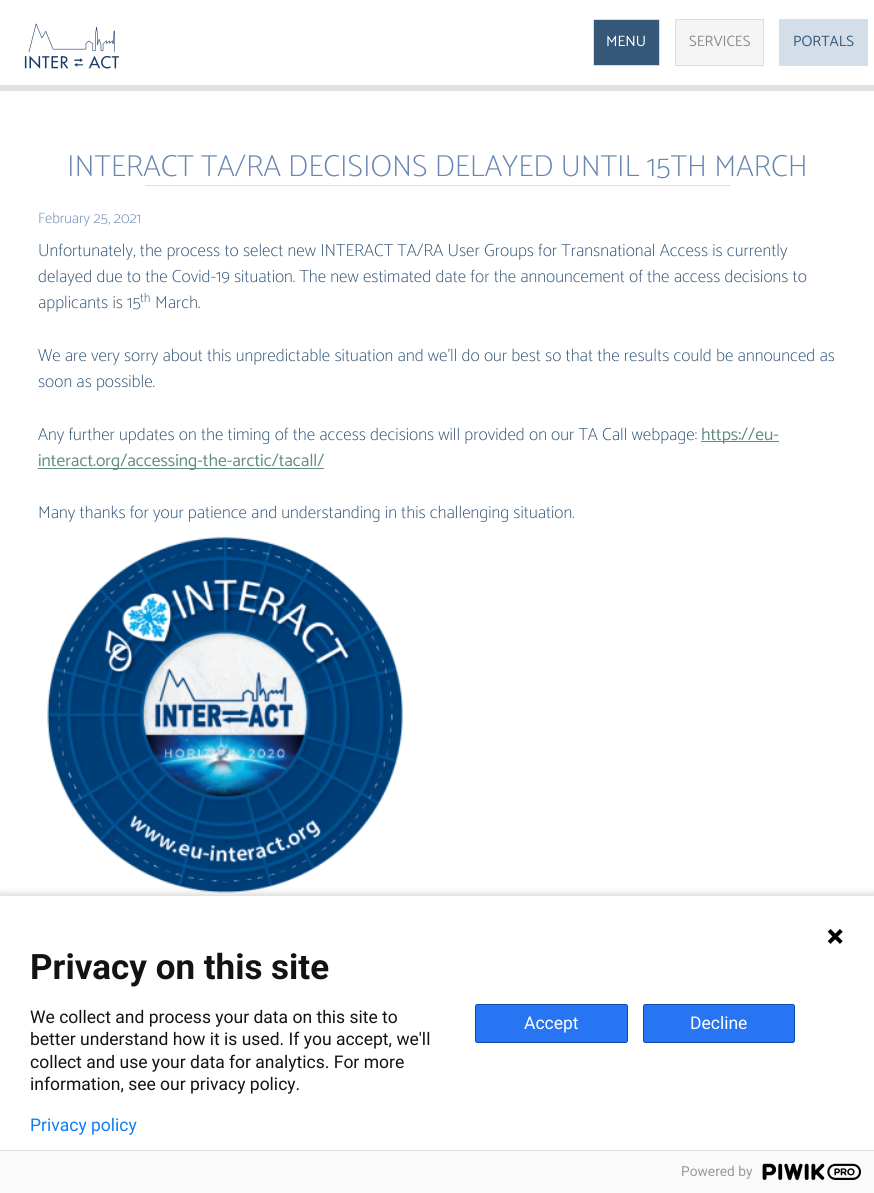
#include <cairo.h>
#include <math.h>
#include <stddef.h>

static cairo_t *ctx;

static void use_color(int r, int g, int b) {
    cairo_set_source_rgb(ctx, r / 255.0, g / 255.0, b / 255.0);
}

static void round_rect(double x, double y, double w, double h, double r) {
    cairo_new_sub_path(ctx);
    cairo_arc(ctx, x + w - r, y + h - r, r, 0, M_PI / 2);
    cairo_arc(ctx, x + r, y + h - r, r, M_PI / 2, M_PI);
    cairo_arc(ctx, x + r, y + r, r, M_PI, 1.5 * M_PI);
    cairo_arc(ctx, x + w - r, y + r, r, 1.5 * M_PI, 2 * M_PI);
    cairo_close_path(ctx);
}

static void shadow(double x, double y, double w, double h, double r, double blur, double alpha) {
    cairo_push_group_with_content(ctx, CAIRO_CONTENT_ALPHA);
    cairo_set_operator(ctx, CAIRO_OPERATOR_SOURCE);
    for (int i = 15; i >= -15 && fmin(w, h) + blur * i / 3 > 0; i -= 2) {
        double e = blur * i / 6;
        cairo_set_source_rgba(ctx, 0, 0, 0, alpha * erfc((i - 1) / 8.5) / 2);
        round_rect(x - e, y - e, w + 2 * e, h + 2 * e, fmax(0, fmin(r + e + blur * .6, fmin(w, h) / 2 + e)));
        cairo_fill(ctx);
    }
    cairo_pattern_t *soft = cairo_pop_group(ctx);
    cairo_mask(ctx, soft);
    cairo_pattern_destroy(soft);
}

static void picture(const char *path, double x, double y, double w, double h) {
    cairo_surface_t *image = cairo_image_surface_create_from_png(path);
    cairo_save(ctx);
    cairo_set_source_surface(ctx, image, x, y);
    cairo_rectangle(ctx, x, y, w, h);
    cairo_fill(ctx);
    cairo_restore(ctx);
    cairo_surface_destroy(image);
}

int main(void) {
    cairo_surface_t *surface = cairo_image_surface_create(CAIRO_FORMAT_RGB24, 874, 1193);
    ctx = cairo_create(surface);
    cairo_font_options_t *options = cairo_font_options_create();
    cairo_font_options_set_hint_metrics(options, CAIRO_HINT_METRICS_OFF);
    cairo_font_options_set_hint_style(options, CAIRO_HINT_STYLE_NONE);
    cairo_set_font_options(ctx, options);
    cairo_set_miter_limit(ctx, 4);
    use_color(255, 255, 255);
    cairo_paint(ctx);
    use_color(224, 224, 224);
    cairo_rectangle(ctx, 0, 85, 874, 6);
    cairo_fill(ctx);
    picture("img1.png", 24, 23, 95, 46);
    use_color(53, 87, 120);
    cairo_rectangle(ctx, 593.5, 19.5, 66, 46);
    cairo_fill_preserve(ctx);
    use_color(221, 221, 221);
    cairo_set_line_width(ctx, 1);
    cairo_stroke(ctx);
    cairo_select_font_face(ctx, "Catamaran", CAIRO_FONT_SLANT_NORMAL, CAIRO_FONT_WEIGHT_NORMAL);
    cairo_set_font_size(ctx, 15);
    use_color(255, 255, 255);
    cairo_move_to(ctx, 606, 46);
    cairo_show_text(ctx, "MENU");
    use_color(245, 245, 245);
    cairo_rectangle(ctx, 675.5, 19.5, 88, 46);
    cairo_fill_preserve(ctx);
    use_color(221, 221, 221);
    cairo_stroke(ctx);
    use_color(141, 139, 139);
    cairo_move_to(ctx, 689, 46);
    cairo_show_text(ctx, "SERVICES");
    use_color(211, 222, 233);
    cairo_rectangle(ctx, 779.5, 19.5, 88, 46);
    cairo_fill_preserve(ctx);
    use_color(221, 221, 221);
    cairo_stroke(ctx);
    use_color(53, 87, 120);
    cairo_move_to(ctx, 793, 46);
    cairo_show_text(ctx, "PORTALS");
    cairo_select_font_face(ctx, "Catamaran Thin", CAIRO_FONT_SLANT_NORMAL, CAIRO_FONT_WEIGHT_NORMAL);
    cairo_set_font_size(ctx, 30.4);
    use_color(103, 134, 178);
    cairo_move_to(ctx, 67, 176);
    cairo_show_text(ctx, "INTERACT TA/RA DECISIONS DELAYED UNTIL 15TH MARCH");
    use_color(224, 224, 224);
    cairo_rectangle(ctx, 145, 185, 586, 1);
    cairo_fill(ctx);
    cairo_set_font_size(ctx, 15);
    use_color(103, 134, 178);
    cairo_move_to(ctx, 38, 223);
    cairo_show_text(ctx, "February 25, 2021");
    cairo_set_font_size(ctx, 17.5);
    use_color(53, 87, 120);
    cairo_move_to(ctx, 38, 256);
    cairo_show_text(ctx, "Unfortunately, the process to select new INTERACT TA/RA User Groups for Transnational Access is currently");
    cairo_move_to(ctx, 38, 282);
    cairo_show_text(ctx, "delayed due to the Covid-19 situation. The new estimated date for the announcement of the access decisions to");
    cairo_move_to(ctx, 38, 308);
    cairo_show_text(ctx, "applicants is 15");
    cairo_set_font_size(ctx, 13);
    cairo_move_to(ctx, 140, 302);
    cairo_show_text(ctx, "th");
    cairo_set_font_size(ctx, 17.5);
    cairo_move_to(ctx, 155, 308);
    cairo_show_text(ctx, "March.");
    cairo_move_to(ctx, 38, 361);
    cairo_show_text(ctx, "We are very sorry about this unpredictable situation and we’ll do our best so that the results could be announced as");
    cairo_move_to(ctx, 38, 387);
    cairo_show_text(ctx, "soon as possible.");
    cairo_move_to(ctx, 38, 440);
    cairo_show_text(ctx, "Any further updates on the timing of the access decisions will provided on our TA Call webpage:");
    use_color(96, 142, 127);
    cairo_rectangle(ctx, 701, 441, 78, 1);
    cairo_fill(ctx);
    cairo_select_font_face(ctx, "Catamaran", CAIRO_FONT_SLANT_NORMAL, CAIRO_FONT_WEIGHT_NORMAL);
    cairo_move_to(ctx, 701, 440);
    cairo_show_text(ctx, "https://eu-");
    cairo_rectangle(ctx, 38, 468, 286, 1);
    cairo_fill(ctx);
    cairo_move_to(ctx, 38, 466);
    cairo_show_text(ctx, "interact.org/accessing-the-arctic/tacall/");
    cairo_select_font_face(ctx, "Catamaran Thin", CAIRO_FONT_SLANT_NORMAL, CAIRO_FONT_WEIGHT_NORMAL);
    use_color(53, 87, 120);
    cairo_move_to(ctx, 38, 518);
    cairo_show_text(ctx, "Many thanks for your patience and understanding in this challenging situation.");
    picture("img2.png", 47, 536, 357, 357);
    use_color(0, 0, 0);
    shadow(-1, 893, 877, 300, 0, 3, 0.14);
    use_color(255, 255, 255);
    cairo_rectangle(ctx, 0, 896, 874, 254);
    cairo_fill(ctx);
    picture("img3.png", 827, 929, 16, 15);
    cairo_select_font_face(ctx, "Roboto", CAIRO_FONT_SLANT_NORMAL, CAIRO_FONT_WEIGHT_BOLD);
    cairo_set_font_size(ctx, 35);
    use_color(19, 19, 19);
    cairo_move_to(ctx, 30, 979);
    cairo_show_text(ctx, "Privacy on this site");
    cairo_select_font_face(ctx, "Roboto", CAIRO_FONT_SLANT_NORMAL, CAIRO_FONT_WEIGHT_NORMAL);
    cairo_set_font_size(ctx, 17.5);
    cairo_move_to(ctx, 30, 1023);
    cairo_show_text(ctx, "We collect and process your data on this site to");
    cairo_move_to(ctx, 30, 1045);
    cairo_show_text(ctx, "better understand how it is used. If you accept, we'll");
    cairo_move_to(ctx, 30, 1068);
    cairo_show_text(ctx, "collect and use your data for analytics. For more");
    cairo_move_to(ctx, 30, 1090);
    cairo_show_text(ctx, "information, see our privacy policy.");
    use_color(16, 126, 241);
    cairo_move_to(ctx, 30, 1131);
    cairo_show_text(ctx, "Privacy policy");
    use_color(39, 117, 242);
    round_rect(475.5, 1004.5, 152, 38, 2);
    cairo_fill_preserve(ctx);
    use_color(11, 75, 179);
    cairo_stroke(ctx);
    use_color(255, 255, 255);
    cairo_move_to(ctx, 524, 1029);
    cairo_show_text(ctx, "Accept");
    use_color(39, 117, 242);
    round_rect(643.5, 1004.5, 151, 38, 2);
    cairo_fill_preserve(ctx);
    use_color(11, 75, 179);
    cairo_stroke(ctx);
    use_color(255, 255, 255);
    cairo_move_to(ctx, 690, 1029);
    cairo_show_text(ctx, "Decline");
    use_color(250, 250, 250);
    cairo_rectangle(ctx, 0, 1151, 874, 42);
    cairo_fill(ctx);
    use_color(221, 221, 221);
    cairo_rectangle(ctx, 0, 1150, 874, 1);
    cairo_fill(ctx);
    cairo_set_font_size(ctx, 13.75);
    use_color(153, 153, 153);
    cairo_move_to(ctx, 681, 1176);
    cairo_show_text(ctx, "Powered by");
    picture("img4.png", 762, 1163, 99, 17);
    cairo_surface_write_to_png(surface, "result.png");
    cairo_font_options_destroy(options);
    cairo_destroy(ctx);
    cairo_surface_destroy(surface);
    return 0;
}
